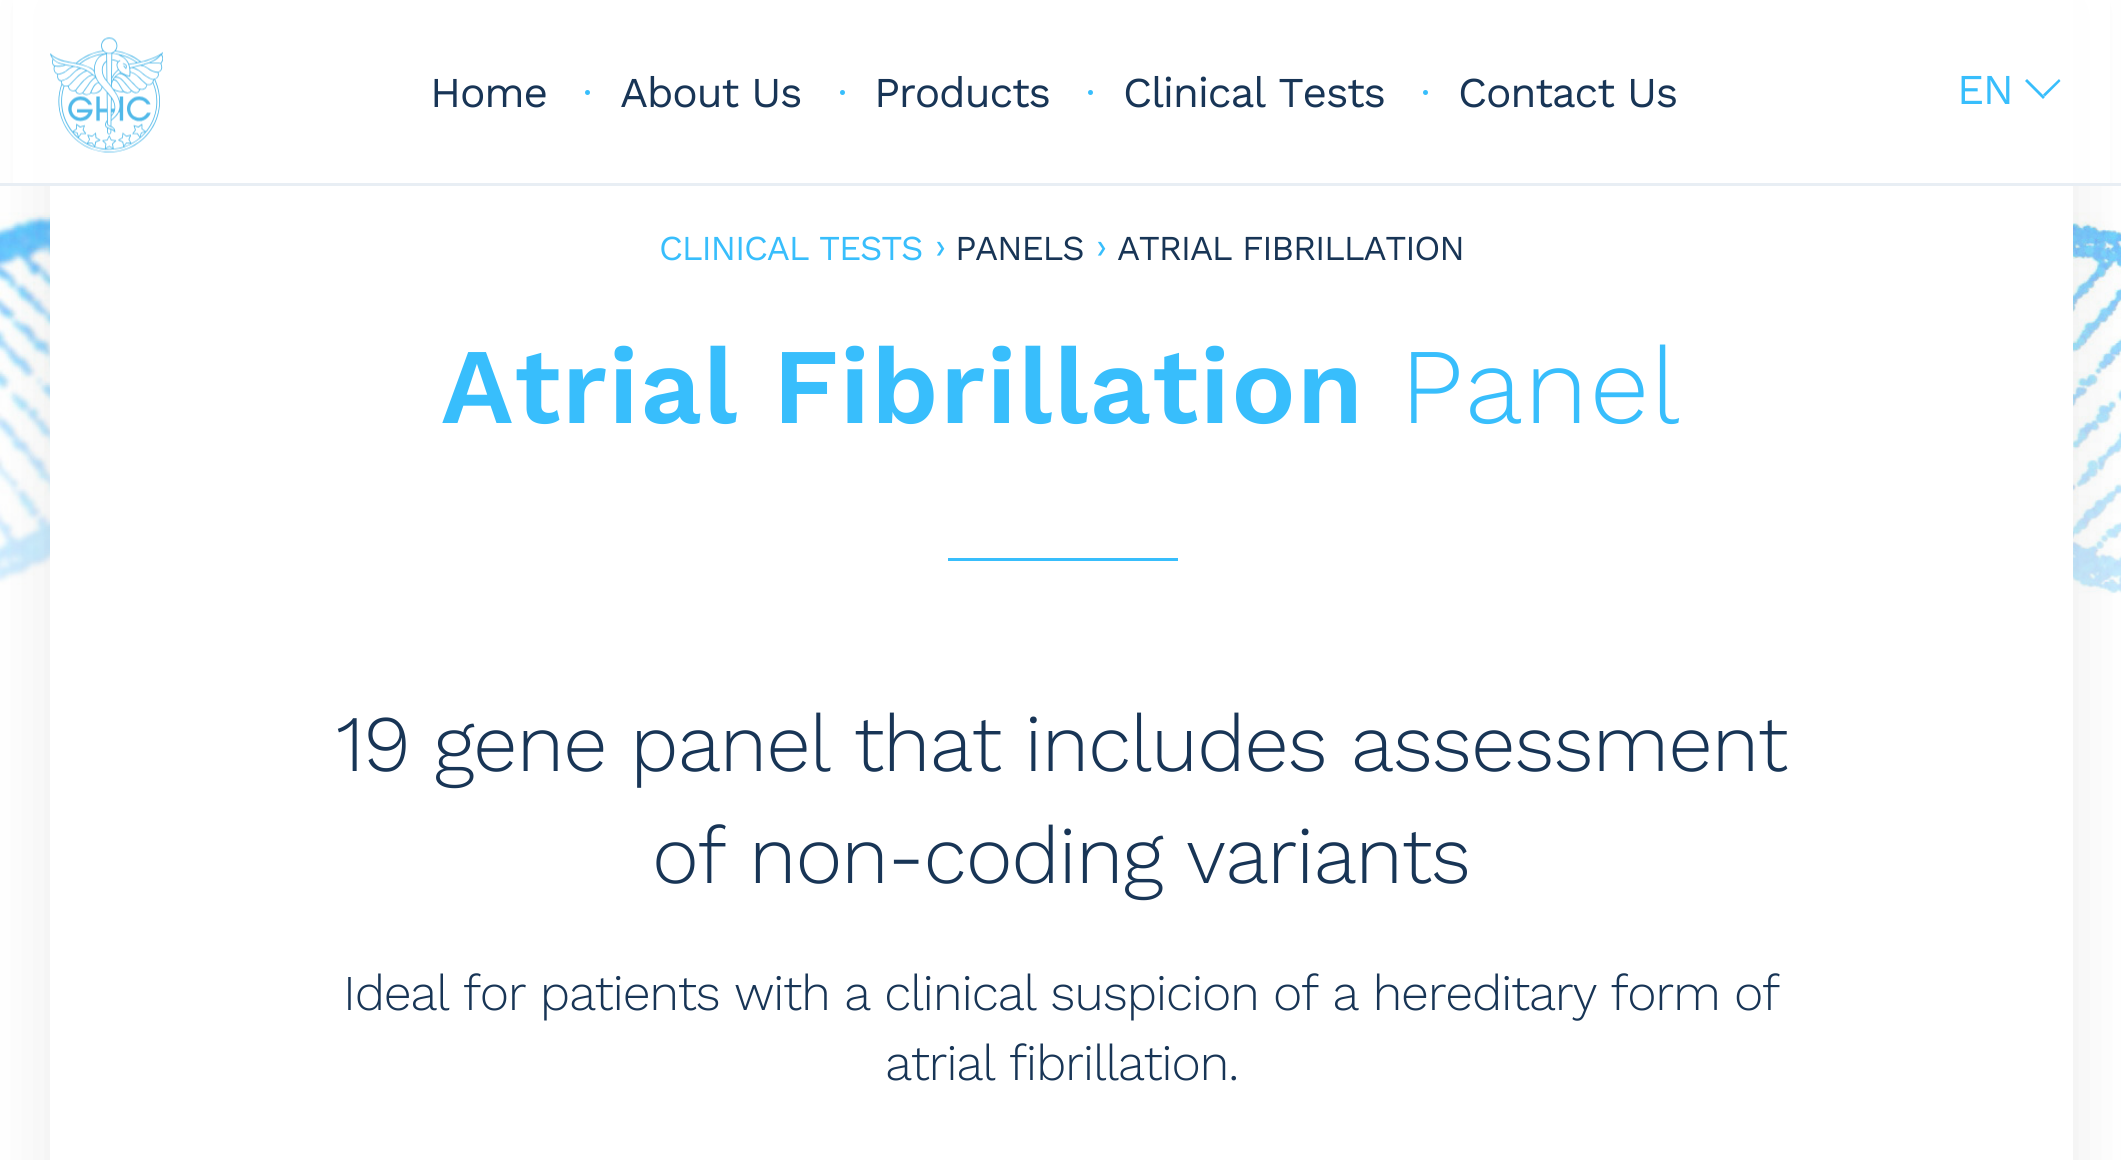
#include <cairo.h>
#include <math.h>
#include <stddef.h>

static cairo_t *ctx;

static void use_color(int r, int g, int b) {
    cairo_set_source_rgb(ctx, r / 255.0, g / 255.0, b / 255.0);
}

static void spaced_text(double x, double y, const char *s, double letter, double word) {
    cairo_move_to(ctx, x, y);
    while (*s) {
        char ch[5] = {0};
        int n = 0;
        do ch[n++] = *s++; while ((*s & 0xC0) == 0x80);
        cairo_show_text(ctx, ch);
        cairo_rel_move_to(ctx, letter + word * (*ch == ' '), 0);
    }
}

static void round_rect(double x, double y, double w, double h, double r) {
    cairo_new_sub_path(ctx);
    cairo_arc(ctx, x + w - r, y + h - r, r, 0, M_PI / 2);
    cairo_arc(ctx, x + r, y + h - r, r, M_PI / 2, M_PI);
    cairo_arc(ctx, x + r, y + r, r, M_PI, 1.5 * M_PI);
    cairo_arc(ctx, x + w - r, y + r, r, 1.5 * M_PI, 2 * M_PI);
    cairo_close_path(ctx);
}

static void shadow(double x, double y, double w, double h, double r, double blur, double alpha) {
    cairo_push_group_with_content(ctx, CAIRO_CONTENT_ALPHA);
    cairo_set_operator(ctx, CAIRO_OPERATOR_SOURCE);
    for (int i = 15; i >= -15 && fmin(w, h) + blur * i / 3 > 0; i -= 2) {
        double e = blur * i / 6;
        cairo_set_source_rgba(ctx, 0, 0, 0, alpha * erfc((i - 1) / 8.5) / 2);
        round_rect(x - e, y - e, w + 2 * e, h + 2 * e, fmax(0, fmin(r + e + blur * .6, fmin(w, h) / 2 + e)));
        cairo_fill(ctx);
    }
    cairo_pattern_t *soft = cairo_pop_group(ctx);
    cairo_mask(ctx, soft);
    cairo_pattern_destroy(soft);
}

static void picture(const char *path, double x, double y, double w, double h) {
    cairo_surface_t *image = cairo_image_surface_create_from_png(path);
    cairo_save(ctx);
    cairo_set_source_surface(ctx, image, x, y);
    cairo_rectangle(ctx, x, y, w, h);
    cairo_fill(ctx);
    cairo_restore(ctx);
    cairo_surface_destroy(image);
}

int main(void) {
    cairo_surface_t *surface = cairo_image_surface_create(CAIRO_FORMAT_RGB24, 2121, 1160);
    ctx = cairo_create(surface);
    cairo_font_options_t *options = cairo_font_options_create();
    cairo_font_options_set_hint_metrics(options, CAIRO_HINT_METRICS_OFF);
    cairo_font_options_set_hint_style(options, CAIRO_HINT_STYLE_NONE);
    cairo_set_font_options(ctx, options);
    cairo_set_miter_limit(ctx, 4);
    use_color(255, 255, 255);
    cairo_paint(ctx);
    picture("img1.png", 0, 0, 2121, 815);
    use_color(0, 0, 0);
    shadow(50, 0, 2023, 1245, 0, 34, 0.08);
    use_color(255, 255, 255);
    cairo_rectangle(ctx, 50, 0, 2023, 1160);
    cairo_fill(ctx);
    cairo_set_source_rgba(ctx, 1, 1, 1, 0.9);
    cairo_rectangle(ctx, 13, 0, 2097, 183);
    cairo_fill(ctx);
    use_color(232, 238, 244);
    cairo_rectangle(ctx, 0, 183, 2121, 3);
    cairo_fill(ctx);
    picture("img2.png", 50, 37, 113, 116);
    cairo_select_font_face(ctx, "Work Sans", CAIRO_FONT_SLANT_NORMAL, CAIRO_FONT_WEIGHT_NORMAL);
    cairo_set_font_size(ctx, 42.5);
    use_color(24, 53, 86);
    spaced_text(430, 107, "Home", -1.25, 0);
    use_color(56, 190, 252);
    cairo_new_path(ctx);
    cairo_arc(ctx, 587.5, 92.5, 2.5, 0, 2 * M_PI);
    cairo_fill(ctx);
    use_color(24, 53, 86);
    spaced_text(620, 107, "About Us", -1.25, 0);
    use_color(56, 190, 252);
    cairo_new_path(ctx);
    cairo_arc(ctx, 842.5, 92.5, 2.5, 0, 2 * M_PI);
    cairo_fill(ctx);
    use_color(24, 53, 86);
    spaced_text(874, 107, "Products", -1.25, 0);
    use_color(56, 190, 252);
    cairo_new_path(ctx);
    cairo_arc(ctx, 1090.5, 92.5, 2.5, 0, 2 * M_PI);
    cairo_fill(ctx);
    use_color(24, 53, 86);
    spaced_text(1123, 107, "Clinical Tests", -1.25, 0);
    use_color(56, 190, 252);
    cairo_new_path(ctx);
    cairo_arc(ctx, 1425.5, 92.5, 2.5, 0, 2 * M_PI);
    cairo_fill(ctx);
    use_color(24, 53, 86);
    spaced_text(1458, 107, "Contact Us", -1.25, 0);
    use_color(56, 190, 252);
    spaced_text(1957, 104, "EN", -1.25, 0);
    cairo_new_path(ctx);
    cairo_move_to(ctx, 2045, 96.5);
    cairo_line_to(ctx, 2043, 94.5);
    cairo_line_to(ctx, 2059, 79);
    cairo_line_to(ctx, 2060.5, 81);
    cairo_close_path(ctx);
    cairo_move_to(ctx, 2043, 99);
    cairo_line_to(ctx, 2025, 81);
    cairo_line_to(ctx, 2027, 79);
    cairo_line_to(ctx, 2045, 97);
    cairo_close_path(ctx);
    cairo_fill(ctx);
    cairo_set_font_size(ctx, 35);
    spaced_text(659, 260, "CLINICAL TESTS", -1.25, 0);
    spaced_text(935, 258, "›", -1.25, 0);
    use_color(24, 53, 86);
    spaced_text(955, 260, "PANELS", -1.25, 0);
    use_color(56, 190, 252);
    spaced_text(1096, 258, "›", -1.25, 0);
    use_color(24, 53, 86);
    spaced_text(1117, 260, "ATRIAL FIBRILLATION", -1.25, 0);
    cairo_select_font_face(ctx, "Work Sans SemiBold", CAIRO_FONT_SLANT_NORMAL, CAIRO_FONT_WEIGHT_NORMAL);
    cairo_set_font_size(ctx, 107.5);
    use_color(56, 190, 252);
    spaced_text(441, 423, "Atrial Fibrillation", 1.25, 0);
    cairo_select_font_face(ctx, "Work Sans Light", CAIRO_FONT_SLANT_NORMAL, CAIRO_FONT_WEIGHT_NORMAL);
    spaced_text(1400, 423, "Panel", 1.25, 0);
    cairo_rectangle(ctx, 948, 558, 230, 3);
    cairo_fill(ctx);
    cairo_set_font_size(ctx, 80);
    use_color(24, 53, 86);
    spaced_text(336, 771, "19 gene panel that includes assessment", -1.25, 0);
    spaced_text(652, 883, "of non-coding variants", -1.25, 0);
    cairo_set_font_size(ctx, 50);
    spaced_text(343, 1010, "Ideal for patients with a clinical suspicion of a hereditary form of", -1.25, 0);
    spaced_text(885, 1080, "atrial fibrillation.", -1.25, 0);
    cairo_surface_write_to_png(surface, "result.png");
    cairo_font_options_destroy(options);
    cairo_destroy(ctx);
    cairo_surface_destroy(surface);
    return 0;
}
